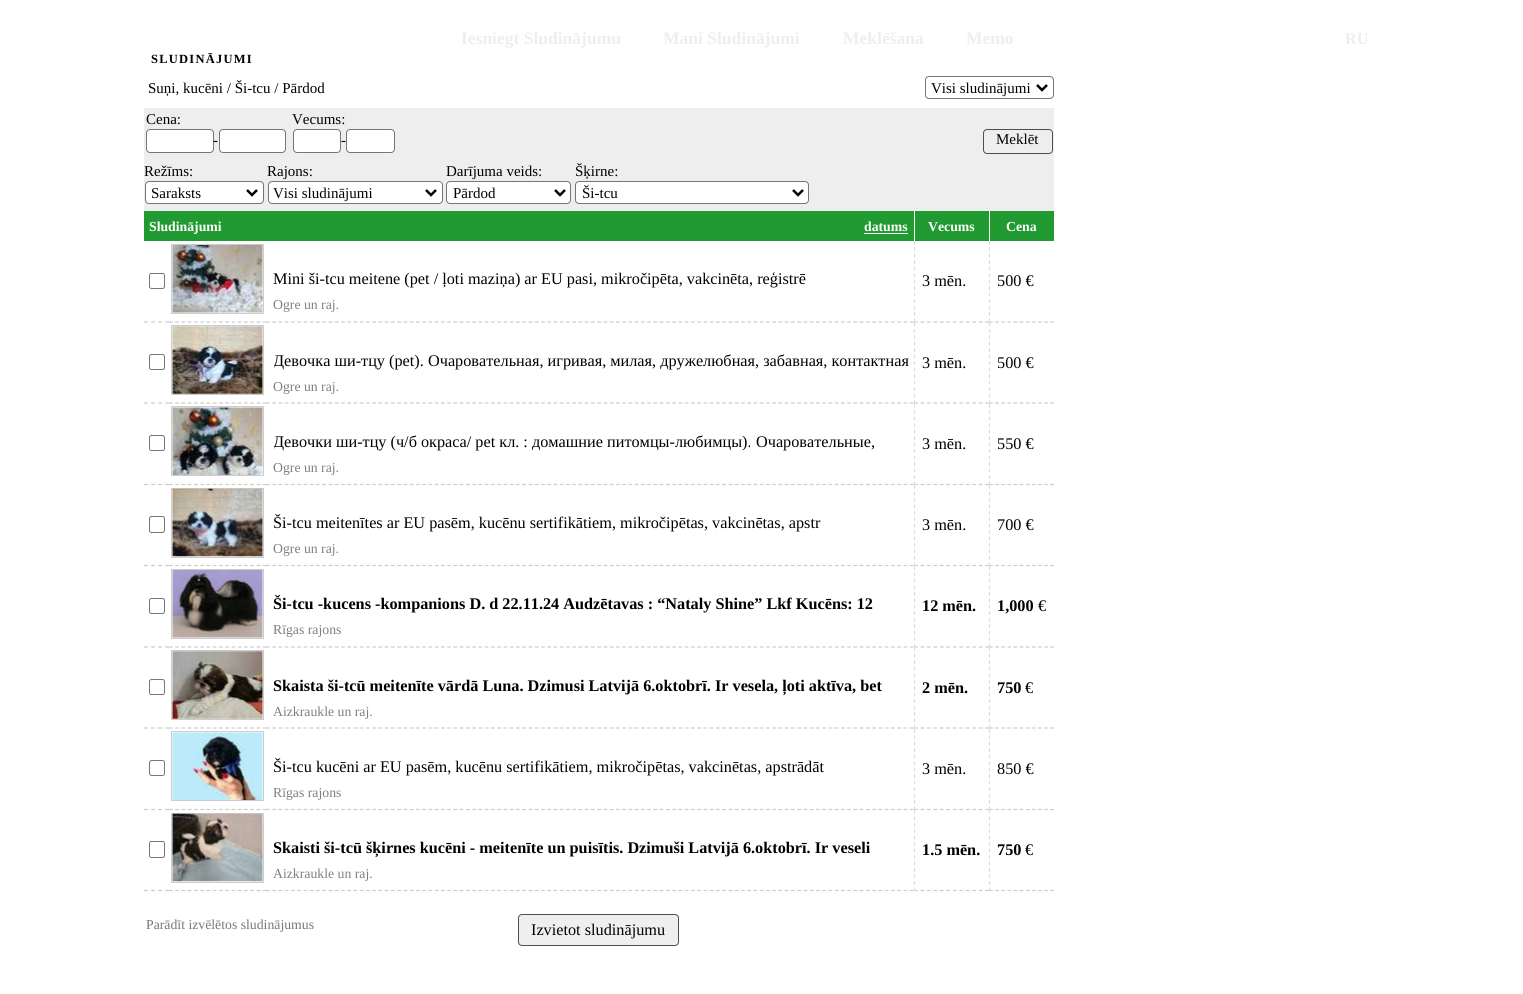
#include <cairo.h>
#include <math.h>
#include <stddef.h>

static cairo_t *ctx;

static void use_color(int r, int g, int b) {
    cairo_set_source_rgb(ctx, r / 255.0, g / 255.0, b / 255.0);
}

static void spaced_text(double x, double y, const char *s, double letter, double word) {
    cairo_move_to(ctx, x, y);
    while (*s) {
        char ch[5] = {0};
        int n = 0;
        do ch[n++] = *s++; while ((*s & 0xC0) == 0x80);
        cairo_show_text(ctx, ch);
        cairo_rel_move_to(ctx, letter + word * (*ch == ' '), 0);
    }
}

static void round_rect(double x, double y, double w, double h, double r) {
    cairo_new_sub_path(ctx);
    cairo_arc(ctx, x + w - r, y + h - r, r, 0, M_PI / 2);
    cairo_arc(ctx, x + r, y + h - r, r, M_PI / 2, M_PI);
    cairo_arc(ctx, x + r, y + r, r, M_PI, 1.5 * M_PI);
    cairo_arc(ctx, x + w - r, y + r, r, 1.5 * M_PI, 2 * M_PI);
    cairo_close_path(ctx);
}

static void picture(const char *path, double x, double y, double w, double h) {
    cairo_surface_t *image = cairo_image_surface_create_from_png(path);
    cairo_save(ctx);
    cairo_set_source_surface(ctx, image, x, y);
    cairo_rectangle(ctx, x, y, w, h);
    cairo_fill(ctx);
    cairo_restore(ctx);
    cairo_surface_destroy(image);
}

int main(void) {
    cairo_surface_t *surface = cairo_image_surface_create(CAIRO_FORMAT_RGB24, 1523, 994);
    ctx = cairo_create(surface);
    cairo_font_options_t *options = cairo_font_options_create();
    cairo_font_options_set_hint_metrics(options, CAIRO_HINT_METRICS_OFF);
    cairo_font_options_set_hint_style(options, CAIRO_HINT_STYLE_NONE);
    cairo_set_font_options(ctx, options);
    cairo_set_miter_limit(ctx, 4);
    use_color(255, 255, 255);
    cairo_paint(ctx);
    cairo_select_font_face(ctx, "Liberation Serif", CAIRO_FONT_SLANT_NORMAL, CAIRO_FONT_WEIGHT_BOLD);
    cairo_set_font_size(ctx, 17.5);
    use_color(238, 238, 238);
    cairo_move_to(ctx, 461, 44);
    cairo_show_text(ctx, "Iesniegt Sludinājumu");
    cairo_move_to(ctx, 663, 44);
    cairo_show_text(ctx, "Mani Sludinājumi");
    cairo_move_to(ctx, 843, 44);
    cairo_show_text(ctx, "Meklēšana");
    cairo_move_to(ctx, 966, 44);
    cairo_show_text(ctx, "Memo");
    cairo_set_font_size(ctx, 16.25);
    cairo_move_to(ctx, 1345, 44);
    cairo_show_text(ctx, "RU");
    cairo_set_font_size(ctx, 12.5);
    use_color(0, 0, 0);
    spaced_text(151, 63, "SLUDINĀJUMI", 1.25, 0);
    cairo_select_font_face(ctx, "Liberation Serif", CAIRO_FONT_SLANT_NORMAL, CAIRO_FONT_WEIGHT_NORMAL);
    cairo_set_font_size(ctx, 15);
    cairo_move_to(ctx, 148, 93);
    cairo_show_text(ctx, "Suņi, kucēni / Ši-tcu / Pārdod");
    round_rect(925.5, 76.5, 128, 22, 3.5);
    use_color(118, 118, 118);
    cairo_set_line_width(ctx, 1);
    cairo_stroke(ctx);
    cairo_new_path(ctx);
    cairo_move_to(ctx, 1037, 85);
    cairo_line_to(ctx, 1042, 90);
    cairo_line_to(ctx, 1047, 85);
    use_color(0, 0, 0);
    cairo_set_line_width(ctx, 2.5);
    cairo_stroke(ctx);
    cairo_move_to(ctx, 931, 93);
    cairo_show_text(ctx, "Visi sludinājumi");
    use_color(238, 238, 238);
    cairo_rectangle(ctx, 144, 108, 910, 103);
    cairo_fill(ctx);
    use_color(0, 0, 0);
    cairo_move_to(ctx, 146, 124);
    cairo_show_text(ctx, "Cena:");
    use_color(255, 255, 255);
    round_rect(146.5, 129.5, 67, 23, 3.5);
    cairo_fill_preserve(ctx);
    use_color(118, 118, 118);
    cairo_set_line_width(ctx, 1);
    cairo_stroke(ctx);
    use_color(0, 0, 0);
    cairo_move_to(ctx, 213, 145);
    cairo_show_text(ctx, "-");
    use_color(255, 255, 255);
    round_rect(219.5, 129.5, 66, 23, 3.5);
    cairo_fill_preserve(ctx);
    use_color(118, 118, 118);
    cairo_stroke(ctx);
    use_color(0, 0, 0);
    cairo_move_to(ctx, 292, 124);
    cairo_show_text(ctx, "Vecums:");
    use_color(255, 255, 255);
    round_rect(293.5, 129.5, 47, 23, 3.5);
    cairo_fill_preserve(ctx);
    use_color(118, 118, 118);
    cairo_stroke(ctx);
    use_color(0, 0, 0);
    cairo_move_to(ctx, 341, 145);
    cairo_show_text(ctx, "-");
    use_color(255, 255, 255);
    round_rect(346.5, 129.5, 48, 23, 3.5);
    cairo_fill_preserve(ctx);
    use_color(118, 118, 118);
    cairo_stroke(ctx);
    round_rect(983.5, 129.5, 69, 24, 3.5);
    use_color(79, 79, 79);
    cairo_stroke(ctx);
    use_color(0, 0, 0);
    cairo_move_to(ctx, 996, 144);
    cairo_show_text(ctx, "Meklēt");
    cairo_move_to(ctx, 144, 176);
    cairo_show_text(ctx, "Režīms:");
    use_color(255, 255, 255);
    round_rect(145.5, 181.5, 118, 22, 3.5);
    cairo_fill_preserve(ctx);
    use_color(118, 118, 118);
    cairo_stroke(ctx);
    cairo_new_path(ctx);
    cairo_move_to(ctx, 247, 190);
    cairo_line_to(ctx, 252, 195);
    cairo_line_to(ctx, 257, 190);
    use_color(0, 0, 0);
    cairo_set_line_width(ctx, 2.5);
    cairo_stroke(ctx);
    cairo_move_to(ctx, 151, 198);
    cairo_show_text(ctx, "Saraksts");
    cairo_move_to(ctx, 267, 176);
    cairo_show_text(ctx, "Rajons:");
    use_color(255, 255, 255);
    round_rect(268.5, 181.5, 174, 22, 3.5);
    cairo_fill_preserve(ctx);
    use_color(118, 118, 118);
    cairo_set_line_width(ctx, 1);
    cairo_stroke(ctx);
    cairo_new_path(ctx);
    cairo_move_to(ctx, 426, 190);
    cairo_line_to(ctx, 431, 195);
    cairo_line_to(ctx, 436, 190);
    use_color(0, 0, 0);
    cairo_set_line_width(ctx, 2.5);
    cairo_stroke(ctx);
    cairo_move_to(ctx, 273, 198);
    cairo_show_text(ctx, "Visi sludinājumi");
    cairo_move_to(ctx, 446, 176);
    cairo_show_text(ctx, "Darījuma veids:");
    use_color(255, 255, 255);
    round_rect(446.5, 181.5, 124, 22, 3.5);
    cairo_fill_preserve(ctx);
    use_color(118, 118, 118);
    cairo_set_line_width(ctx, 1);
    cairo_stroke(ctx);
    cairo_new_path(ctx);
    cairo_move_to(ctx, 555, 190);
    cairo_line_to(ctx, 560, 195);
    cairo_line_to(ctx, 565, 190);
    use_color(0, 0, 0);
    cairo_set_line_width(ctx, 2.5);
    cairo_stroke(ctx);
    cairo_move_to(ctx, 453, 198);
    cairo_show_text(ctx, "Pārdod");
    cairo_move_to(ctx, 575, 176);
    cairo_show_text(ctx, "Šķirne:");
    use_color(255, 255, 255);
    round_rect(575.5, 181.5, 233, 22, 3.5);
    cairo_fill_preserve(ctx);
    use_color(118, 118, 118);
    cairo_set_line_width(ctx, 1);
    cairo_stroke(ctx);
    cairo_new_path(ctx);
    cairo_move_to(ctx, 793, 190);
    cairo_line_to(ctx, 798, 195);
    cairo_line_to(ctx, 803, 190);
    use_color(0, 0, 0);
    cairo_set_line_width(ctx, 2.5);
    cairo_stroke(ctx);
    cairo_move_to(ctx, 582, 198);
    cairo_show_text(ctx, "Ši-tcu");
    use_color(33, 154, 50);
    cairo_rectangle(ctx, 144, 211, 770, 30);
    cairo_fill(ctx);
    cairo_select_font_face(ctx, "Liberation Serif", CAIRO_FONT_SLANT_NORMAL, CAIRO_FONT_WEIGHT_BOLD);
    cairo_set_font_size(ctx, 13.75);
    use_color(255, 255, 255);
    cairo_move_to(ctx, 149, 231);
    cairo_show_text(ctx, "Sludinājumi");
    cairo_move_to(ctx, 864, 231);
    cairo_show_text(ctx, "datums");
    cairo_rectangle(ctx, 864, 233, 44, 1);
    cairo_fill(ctx);
    use_color(33, 154, 50);
    cairo_rectangle(ctx, 915, 211, 74, 30);
    cairo_fill(ctx);
    use_color(255, 255, 255);
    cairo_move_to(ctx, 928, 231);
    cairo_show_text(ctx, "Vecums");
    use_color(33, 154, 50);
    cairo_rectangle(ctx, 990, 211, 64, 30);
    cairo_fill(ctx);
    use_color(255, 255, 255);
    cairo_move_to(ctx, 1006, 231);
    cairo_show_text(ctx, "Cena");
    cairo_new_path(ctx);
    cairo_move_to(ctx, 144, 322);
    cairo_line_to(ctx, 169, 322);
    use_color(204, 204, 204);
    cairo_set_line_width(ctx, 1.2);
    cairo_set_dash(ctx, (double[]){3.75, 3.34}, 2, 0);
    cairo_stroke(ctx);
    round_rect(149.5, 273.5, 15, 15, 2);
    use_color(118, 118, 118);
    cairo_set_line_width(ctx, 1);
    cairo_set_dash(ctx, NULL, 0, 0);
    cairo_stroke(ctx);
    cairo_new_path(ctx);
    cairo_move_to(ctx, 169, 322);
    cairo_line_to(ctx, 266, 322);
    use_color(204, 204, 204);
    cairo_set_line_width(ctx, 1.2);
    cairo_set_dash(ctx, (double[]){3.75, 2.5}, 2, 0);
    cairo_stroke(ctx);
    cairo_rectangle(ctx, 171.5, 244.5, 92, 69);
    cairo_set_line_width(ctx, 1);
    cairo_set_dash(ctx, NULL, 0, 0);
    cairo_stroke(ctx);
    picture("img1.png", 172, 245, 91, 68);
    cairo_new_path(ctx);
    cairo_move_to(ctx, 266, 322);
    cairo_line_to(ctx, 914, 322);
    cairo_set_line_width(ctx, 1.2);
    cairo_set_dash(ctx, (double[]){3.75, 2.5}, 2, 0);
    cairo_stroke(ctx);
    cairo_select_font_face(ctx, "Liberation Serif", CAIRO_FONT_SLANT_NORMAL, CAIRO_FONT_WEIGHT_NORMAL);
    cairo_set_font_size(ctx, 16.25);
    use_color(0, 0, 0);
    cairo_move_to(ctx, 273, 284);
    cairo_show_text(ctx, "Mini ši-tcu meitene (pet / ļoti maziņa) ar EU pasi, mikročipēta, vakcinēta, reģistrē");
    cairo_set_font_size(ctx, 13.75);
    use_color(128, 128, 128);
    cairo_move_to(ctx, 273, 309);
    cairo_show_text(ctx, "Ogre un raj.");
    cairo_new_path(ctx);
    cairo_move_to(ctx, 914, 322);
    cairo_line_to(ctx, 989, 322);
    use_color(204, 204, 204);
    cairo_set_dash(ctx, (double[]){3.75, 2.73}, 2, 0);
    cairo_stroke(ctx);
    cairo_new_path(ctx);
    cairo_move_to(ctx, 914.5, 241);
    cairo_line_to(ctx, 914.5, 322.5);
    use_color(221, 221, 221);
    cairo_set_dash(ctx, (double[]){3.75, 2.71}, 2, 0);
    cairo_stroke(ctx);
    cairo_set_font_size(ctx, 16.25);
    use_color(0, 0, 0);
    cairo_move_to(ctx, 922, 286);
    cairo_show_text(ctx, "3 mēn.");
    cairo_new_path(ctx);
    cairo_move_to(ctx, 989, 322);
    cairo_line_to(ctx, 1054, 322);
    use_color(204, 204, 204);
    cairo_set_dash(ctx, (double[]){3.75, 2.38}, 2, 0);
    cairo_stroke(ctx);
    cairo_new_path(ctx);
    cairo_move_to(ctx, 989.5, 241);
    cairo_line_to(ctx, 989.5, 322.5);
    use_color(221, 221, 221);
    cairo_set_dash(ctx, (double[]){3.75, 2.71}, 2, 0);
    cairo_stroke(ctx);
    use_color(0, 0, 0);
    cairo_move_to(ctx, 997, 286);
    cairo_show_text(ctx, "500 €");
    cairo_new_path(ctx);
    cairo_move_to(ctx, 144, 403);
    cairo_line_to(ctx, 169, 403);
    use_color(204, 204, 204);
    cairo_set_dash(ctx, (double[]){3.75, 3.34}, 2, 0);
    cairo_stroke(ctx);
    round_rect(149.5, 354.5, 15, 15, 2);
    use_color(118, 118, 118);
    cairo_set_line_width(ctx, 1);
    cairo_set_dash(ctx, NULL, 0, 0);
    cairo_stroke(ctx);
    cairo_new_path(ctx);
    cairo_move_to(ctx, 169, 403);
    cairo_line_to(ctx, 266, 403);
    use_color(204, 204, 204);
    cairo_set_line_width(ctx, 1.2);
    cairo_set_dash(ctx, (double[]){3.75, 2.5}, 2, 0);
    cairo_stroke(ctx);
    cairo_rectangle(ctx, 171.5, 325.5, 92, 69);
    cairo_set_line_width(ctx, 1);
    cairo_set_dash(ctx, NULL, 0, 0);
    cairo_stroke(ctx);
    picture("img2.png", 172, 326, 91, 68);
    cairo_new_path(ctx);
    cairo_move_to(ctx, 266, 403);
    cairo_line_to(ctx, 914, 403);
    cairo_set_line_width(ctx, 1.2);
    cairo_set_dash(ctx, (double[]){3.75, 2.5}, 2, 0);
    cairo_stroke(ctx);
    cairo_save(ctx);
    cairo_rectangle(ctx, 274, 351, 642, 19);
    cairo_clip(ctx);
    use_color(0, 0, 0);
    cairo_move_to(ctx, 273, 366);
    cairo_show_text(ctx, "Девочка ши-тцу (pet).");
    cairo_restore(ctx);
    use_color(0, 0, 0);
    cairo_move_to(ctx, 428, 366);
    cairo_show_text(ctx, "Очаровательная, игривая, милая, дружелюбная, забавная, контактная");
    cairo_set_font_size(ctx, 13.75);
    use_color(128, 128, 128);
    cairo_move_to(ctx, 273, 391);
    cairo_show_text(ctx, "Ogre un raj.");
    cairo_new_path(ctx);
    cairo_move_to(ctx, 914, 403);
    cairo_line_to(ctx, 989, 403);
    use_color(204, 204, 204);
    cairo_set_dash(ctx, (double[]){3.75, 2.73}, 2, 0);
    cairo_stroke(ctx);
    cairo_new_path(ctx);
    cairo_move_to(ctx, 914.5, 322.5);
    cairo_line_to(ctx, 914.5, 404);
    use_color(221, 221, 221);
    cairo_set_dash(ctx, (double[]){3.75, 2.71}, 2, 0);
    cairo_stroke(ctx);
    cairo_set_font_size(ctx, 16.25);
    use_color(0, 0, 0);
    cairo_move_to(ctx, 922, 368);
    cairo_show_text(ctx, "3 mēn.");
    cairo_new_path(ctx);
    cairo_move_to(ctx, 989, 403);
    cairo_line_to(ctx, 1054, 403);
    use_color(204, 204, 204);
    cairo_set_dash(ctx, (double[]){3.75, 2.38}, 2, 0);
    cairo_stroke(ctx);
    cairo_new_path(ctx);
    cairo_move_to(ctx, 989.5, 322.5);
    cairo_line_to(ctx, 989.5, 404);
    use_color(221, 221, 221);
    cairo_set_dash(ctx, (double[]){3.75, 2.71}, 2, 0);
    cairo_stroke(ctx);
    use_color(0, 0, 0);
    cairo_move_to(ctx, 997, 368);
    cairo_show_text(ctx, "500 €");
    cairo_new_path(ctx);
    cairo_move_to(ctx, 144, 484.5);
    cairo_line_to(ctx, 169, 484.5);
    use_color(204, 204, 204);
    cairo_set_dash(ctx, (double[]){3.75, 3.34}, 2, 0);
    cairo_stroke(ctx);
    round_rect(149.5, 435.5, 15, 15, 2);
    use_color(118, 118, 118);
    cairo_set_line_width(ctx, 1);
    cairo_set_dash(ctx, NULL, 0, 0);
    cairo_stroke(ctx);
    cairo_new_path(ctx);
    cairo_move_to(ctx, 169, 484.5);
    cairo_line_to(ctx, 266, 484.5);
    use_color(204, 204, 204);
    cairo_set_line_width(ctx, 1.2);
    cairo_set_dash(ctx, (double[]){3.75, 2.5}, 2, 0);
    cairo_stroke(ctx);
    cairo_rectangle(ctx, 171.5, 406.5, 92, 69);
    cairo_set_line_width(ctx, 1);
    cairo_set_dash(ctx, NULL, 0, 0);
    cairo_stroke(ctx);
    picture("img3.png", 172, 407, 91, 68);
    cairo_new_path(ctx);
    cairo_move_to(ctx, 266, 484.5);
    cairo_line_to(ctx, 914, 484.5);
    cairo_set_line_width(ctx, 1.2);
    cairo_set_dash(ctx, (double[]){3.75, 2.5}, 2, 0);
    cairo_stroke(ctx);
    cairo_save(ctx);
    cairo_rectangle(ctx, 274, 433, 642, 18);
    cairo_clip(ctx);
    use_color(0, 0, 0);
    cairo_move_to(ctx, 273, 447);
    cairo_show_text(ctx, "Девочки ши-тцу (ч/б окраса/ pet кл. : домашние питомцы-любимцы).");
    cairo_restore(ctx);
    use_color(0, 0, 0);
    cairo_move_to(ctx, 756, 447);
    cairo_show_text(ctx, "Очаровательные,");
    cairo_set_font_size(ctx, 13.75);
    use_color(128, 128, 128);
    cairo_move_to(ctx, 273, 472);
    cairo_show_text(ctx, "Ogre un raj.");
    cairo_new_path(ctx);
    cairo_move_to(ctx, 914, 484.5);
    cairo_line_to(ctx, 989, 484.5);
    use_color(204, 204, 204);
    cairo_set_dash(ctx, (double[]){3.75, 2.73}, 2, 0);
    cairo_stroke(ctx);
    cairo_new_path(ctx);
    cairo_move_to(ctx, 914.5, 404);
    cairo_line_to(ctx, 914.5, 485);
    use_color(221, 221, 221);
    cairo_set_dash(ctx, (double[]){3.75, 2.71}, 2, 0);
    cairo_stroke(ctx);
    cairo_set_font_size(ctx, 16.25);
    use_color(0, 0, 0);
    cairo_move_to(ctx, 922, 449);
    cairo_show_text(ctx, "3 mēn.");
    cairo_new_path(ctx);
    cairo_move_to(ctx, 989, 484.5);
    cairo_line_to(ctx, 1054, 484.5);
    use_color(204, 204, 204);
    cairo_set_dash(ctx, (double[]){3.75, 2.38}, 2, 0);
    cairo_stroke(ctx);
    cairo_new_path(ctx);
    cairo_move_to(ctx, 989.5, 404);
    cairo_line_to(ctx, 989.5, 485);
    use_color(221, 221, 221);
    cairo_set_dash(ctx, (double[]){3.75, 2.71}, 2, 0);
    cairo_stroke(ctx);
    use_color(0, 0, 0);
    cairo_move_to(ctx, 997, 449);
    cairo_show_text(ctx, "550 €");
    cairo_new_path(ctx);
    cairo_move_to(ctx, 144, 565.5);
    cairo_line_to(ctx, 169, 565.5);
    use_color(204, 204, 204);
    cairo_set_dash(ctx, (double[]){3.75, 3.34}, 2, 0);
    cairo_stroke(ctx);
    round_rect(149.5, 516.5, 15, 16, 2);
    use_color(118, 118, 118);
    cairo_set_line_width(ctx, 1);
    cairo_set_dash(ctx, NULL, 0, 0);
    cairo_stroke(ctx);
    cairo_new_path(ctx);
    cairo_move_to(ctx, 169, 565.5);
    cairo_line_to(ctx, 266, 565.5);
    use_color(204, 204, 204);
    cairo_set_line_width(ctx, 1.2);
    cairo_set_dash(ctx, (double[]){3.75, 2.5}, 2, 0);
    cairo_stroke(ctx);
    cairo_rectangle(ctx, 171.5, 488.5, 92, 69);
    cairo_set_line_width(ctx, 1);
    cairo_set_dash(ctx, NULL, 0, 0);
    cairo_stroke(ctx);
    picture("img4.png", 172, 488, 91, 69);
    cairo_new_path(ctx);
    cairo_move_to(ctx, 266, 565.5);
    cairo_line_to(ctx, 914, 565.5);
    cairo_set_line_width(ctx, 1.2);
    cairo_set_dash(ctx, (double[]){3.75, 2.5}, 2, 0);
    cairo_stroke(ctx);
    use_color(0, 0, 0);
    cairo_move_to(ctx, 273, 528);
    cairo_show_text(ctx, "Ši-tcu meitenītes ar EU pasēm, kucēnu sertifikātiem, mikročipētas, vakcinētas, apstr");
    cairo_set_font_size(ctx, 13.75);
    use_color(128, 128, 128);
    cairo_move_to(ctx, 273, 553);
    cairo_show_text(ctx, "Ogre un raj.");
    cairo_new_path(ctx);
    cairo_move_to(ctx, 914, 565.5);
    cairo_line_to(ctx, 989, 565.5);
    use_color(204, 204, 204);
    cairo_set_dash(ctx, (double[]){3.75, 2.73}, 2, 0);
    cairo_stroke(ctx);
    cairo_new_path(ctx);
    cairo_move_to(ctx, 914.5, 485);
    cairo_line_to(ctx, 914.5, 566);
    use_color(221, 221, 221);
    cairo_set_dash(ctx, (double[]){3.75, 2.71}, 2, 0);
    cairo_stroke(ctx);
    cairo_set_font_size(ctx, 16.25);
    use_color(0, 0, 0);
    cairo_move_to(ctx, 922, 530);
    cairo_show_text(ctx, "3 mēn.");
    cairo_new_path(ctx);
    cairo_move_to(ctx, 989, 565.5);
    cairo_line_to(ctx, 1054, 565.5);
    use_color(204, 204, 204);
    cairo_set_dash(ctx, (double[]){3.75, 2.38}, 2, 0);
    cairo_stroke(ctx);
    cairo_new_path(ctx);
    cairo_move_to(ctx, 989.5, 485);
    cairo_line_to(ctx, 989.5, 566);
    use_color(221, 221, 221);
    cairo_set_dash(ctx, (double[]){3.75, 2.71}, 2, 0);
    cairo_stroke(ctx);
    use_color(0, 0, 0);
    cairo_move_to(ctx, 997, 530);
    cairo_show_text(ctx, "700 €");
    cairo_new_path(ctx);
    cairo_move_to(ctx, 144, 647);
    cairo_line_to(ctx, 169, 647);
    use_color(204, 204, 204);
    cairo_set_dash(ctx, (double[]){3.75, 3.34}, 2, 0);
    cairo_stroke(ctx);
    round_rect(149.5, 598.5, 15, 15, 2);
    use_color(118, 118, 118);
    cairo_set_line_width(ctx, 1);
    cairo_set_dash(ctx, NULL, 0, 0);
    cairo_stroke(ctx);
    cairo_new_path(ctx);
    cairo_move_to(ctx, 169, 647);
    cairo_line_to(ctx, 266, 647);
    use_color(204, 204, 204);
    cairo_set_line_width(ctx, 1.2);
    cairo_set_dash(ctx, (double[]){3.75, 2.5}, 2, 0);
    cairo_stroke(ctx);
    cairo_rectangle(ctx, 171.5, 569.5, 92, 69);
    cairo_set_line_width(ctx, 1);
    cairo_set_dash(ctx, NULL, 0, 0);
    cairo_stroke(ctx);
    picture("img5.png", 172, 570, 91, 68);
    cairo_new_path(ctx);
    cairo_move_to(ctx, 266, 647);
    cairo_line_to(ctx, 914, 647);
    cairo_set_line_width(ctx, 1.2);
    cairo_set_dash(ctx, (double[]){3.75, 2.5}, 2, 0);
    cairo_stroke(ctx);
    cairo_select_font_face(ctx, "Liberation Serif", CAIRO_FONT_SLANT_NORMAL, CAIRO_FONT_WEIGHT_BOLD);
    use_color(0, 0, 0);
    cairo_move_to(ctx, 273, 609);
    cairo_show_text(ctx, "Ši-tcu -kucens -kompanions D. d 22.11.24 Audzētavas : “Nataly Shine” Lkf Kucēns: 12");
    cairo_select_font_face(ctx, "Liberation Serif", CAIRO_FONT_SLANT_NORMAL, CAIRO_FONT_WEIGHT_NORMAL);
    cairo_set_font_size(ctx, 13.75);
    use_color(128, 128, 128);
    cairo_move_to(ctx, 273, 634);
    cairo_show_text(ctx, "Rīgas rajons");
    cairo_new_path(ctx);
    cairo_move_to(ctx, 914, 647);
    cairo_line_to(ctx, 989, 647);
    use_color(204, 204, 204);
    cairo_set_dash(ctx, (double[]){3.75, 2.73}, 2, 0);
    cairo_stroke(ctx);
    cairo_new_path(ctx);
    cairo_move_to(ctx, 914.5, 566);
    cairo_line_to(ctx, 914.5, 647.5);
    use_color(221, 221, 221);
    cairo_set_dash(ctx, (double[]){3.75, 2.71}, 2, 0);
    cairo_stroke(ctx);
    cairo_select_font_face(ctx, "Liberation Serif", CAIRO_FONT_SLANT_NORMAL, CAIRO_FONT_WEIGHT_BOLD);
    cairo_set_font_size(ctx, 16.25);
    use_color(0, 0, 0);
    cairo_move_to(ctx, 922, 611);
    cairo_show_text(ctx, "12 mēn.");
    cairo_new_path(ctx);
    cairo_move_to(ctx, 989, 647);
    cairo_line_to(ctx, 1054, 647);
    use_color(204, 204, 204);
    cairo_set_dash(ctx, (double[]){3.75, 2.38}, 2, 0);
    cairo_stroke(ctx);
    cairo_new_path(ctx);
    cairo_move_to(ctx, 989.5, 566);
    cairo_line_to(ctx, 989.5, 647.5);
    use_color(221, 221, 221);
    cairo_set_dash(ctx, (double[]){3.75, 2.71}, 2, 0);
    cairo_stroke(ctx);
    use_color(0, 0, 0);
    cairo_move_to(ctx, 997, 611);
    cairo_show_text(ctx, "1,000");
    cairo_select_font_face(ctx, "Liberation Serif", CAIRO_FONT_SLANT_NORMAL, CAIRO_FONT_WEIGHT_NORMAL);
    cairo_move_to(ctx, 1038, 611);
    cairo_show_text(ctx, "€");
    cairo_new_path(ctx);
    cairo_move_to(ctx, 144, 728);
    cairo_line_to(ctx, 169, 728);
    use_color(204, 204, 204);
    cairo_set_dash(ctx, (double[]){3.75, 3.34}, 2, 0);
    cairo_stroke(ctx);
    round_rect(149.5, 679.5, 15, 15, 2);
    use_color(118, 118, 118);
    cairo_set_line_width(ctx, 1);
    cairo_set_dash(ctx, NULL, 0, 0);
    cairo_stroke(ctx);
    cairo_new_path(ctx);
    cairo_move_to(ctx, 169, 728);
    cairo_line_to(ctx, 266, 728);
    use_color(204, 204, 204);
    cairo_set_line_width(ctx, 1.2);
    cairo_set_dash(ctx, (double[]){3.75, 2.5}, 2, 0);
    cairo_stroke(ctx);
    cairo_rectangle(ctx, 171.5, 650.5, 92, 69);
    cairo_set_line_width(ctx, 1);
    cairo_set_dash(ctx, NULL, 0, 0);
    cairo_stroke(ctx);
    picture("img6.png", 172, 651, 91, 68);
    cairo_new_path(ctx);
    cairo_move_to(ctx, 266, 728);
    cairo_line_to(ctx, 914, 728);
    cairo_set_line_width(ctx, 1.2);
    cairo_set_dash(ctx, (double[]){3.75, 2.5}, 2, 0);
    cairo_stroke(ctx);
    cairo_select_font_face(ctx, "Liberation Serif", CAIRO_FONT_SLANT_NORMAL, CAIRO_FONT_WEIGHT_BOLD);
    use_color(0, 0, 0);
    cairo_move_to(ctx, 273, 691);
    cairo_show_text(ctx, "Skaista ši-tcū meitenīte vārdā Luna. Dzimusi Latvijā 6.oktobrī. Ir vesela, ļoti aktīva, bet");
    cairo_select_font_face(ctx, "Liberation Serif", CAIRO_FONT_SLANT_NORMAL, CAIRO_FONT_WEIGHT_NORMAL);
    cairo_set_font_size(ctx, 13.75);
    use_color(128, 128, 128);
    cairo_move_to(ctx, 273, 716);
    cairo_show_text(ctx, "Aizkraukle un raj.");
    cairo_new_path(ctx);
    cairo_move_to(ctx, 914, 728);
    cairo_line_to(ctx, 989, 728);
    use_color(204, 204, 204);
    cairo_set_dash(ctx, (double[]){3.75, 2.73}, 2, 0);
    cairo_stroke(ctx);
    cairo_new_path(ctx);
    cairo_move_to(ctx, 914.5, 647.5);
    cairo_line_to(ctx, 914.5, 729);
    use_color(221, 221, 221);
    cairo_set_dash(ctx, (double[]){3.75, 2.71}, 2, 0);
    cairo_stroke(ctx);
    cairo_select_font_face(ctx, "Liberation Serif", CAIRO_FONT_SLANT_NORMAL, CAIRO_FONT_WEIGHT_BOLD);
    cairo_set_font_size(ctx, 16.25);
    use_color(0, 0, 0);
    cairo_move_to(ctx, 922, 693);
    cairo_show_text(ctx, "2 mēn.");
    cairo_new_path(ctx);
    cairo_move_to(ctx, 989, 728);
    cairo_line_to(ctx, 1054, 728);
    use_color(204, 204, 204);
    cairo_set_dash(ctx, (double[]){3.75, 2.38}, 2, 0);
    cairo_stroke(ctx);
    cairo_new_path(ctx);
    cairo_move_to(ctx, 989.5, 647.5);
    cairo_line_to(ctx, 989.5, 729);
    use_color(221, 221, 221);
    cairo_set_dash(ctx, (double[]){3.75, 2.71}, 2, 0);
    cairo_stroke(ctx);
    use_color(0, 0, 0);
    cairo_move_to(ctx, 997, 693);
    cairo_show_text(ctx, "750");
    cairo_select_font_face(ctx, "Liberation Serif", CAIRO_FONT_SLANT_NORMAL, CAIRO_FONT_WEIGHT_NORMAL);
    cairo_move_to(ctx, 1025, 693);
    cairo_show_text(ctx, "€");
    cairo_new_path(ctx);
    cairo_move_to(ctx, 144, 809.5);
    cairo_line_to(ctx, 169, 809.5);
    use_color(204, 204, 204);
    cairo_set_dash(ctx, (double[]){3.75, 3.34}, 2, 0);
    cairo_stroke(ctx);
    round_rect(149.5, 760.5, 15, 15, 2);
    use_color(118, 118, 118);
    cairo_set_line_width(ctx, 1);
    cairo_set_dash(ctx, NULL, 0, 0);
    cairo_stroke(ctx);
    cairo_new_path(ctx);
    cairo_move_to(ctx, 169, 809.5);
    cairo_line_to(ctx, 266, 809.5);
    use_color(204, 204, 204);
    cairo_set_line_width(ctx, 1.2);
    cairo_set_dash(ctx, (double[]){3.75, 2.5}, 2, 0);
    cairo_stroke(ctx);
    cairo_rectangle(ctx, 171.5, 731.5, 92, 69);
    cairo_set_line_width(ctx, 1);
    cairo_set_dash(ctx, NULL, 0, 0);
    cairo_stroke(ctx);
    picture("img7.png", 172, 732, 91, 68);
    cairo_new_path(ctx);
    cairo_move_to(ctx, 266, 809.5);
    cairo_line_to(ctx, 914, 809.5);
    cairo_set_line_width(ctx, 1.2);
    cairo_set_dash(ctx, (double[]){3.75, 2.5}, 2, 0);
    cairo_stroke(ctx);
    use_color(0, 0, 0);
    cairo_move_to(ctx, 273, 772);
    cairo_show_text(ctx, "Ši-tcu kucēni ar EU pasēm, kucēnu sertifikātiem, mikročipētas, vakcinētas, apstrādāt");
    cairo_set_font_size(ctx, 13.75);
    use_color(128, 128, 128);
    cairo_move_to(ctx, 273, 797);
    cairo_show_text(ctx, "Rīgas rajons");
    cairo_new_path(ctx);
    cairo_move_to(ctx, 914, 809.5);
    cairo_line_to(ctx, 989, 809.5);
    use_color(204, 204, 204);
    cairo_set_dash(ctx, (double[]){3.75, 2.73}, 2, 0);
    cairo_stroke(ctx);
    cairo_new_path(ctx);
    cairo_move_to(ctx, 914.5, 729);
    cairo_line_to(ctx, 914.5, 810);
    use_color(221, 221, 221);
    cairo_set_dash(ctx, (double[]){3.75, 2.71}, 2, 0);
    cairo_stroke(ctx);
    cairo_set_font_size(ctx, 16.25);
    use_color(0, 0, 0);
    cairo_move_to(ctx, 922, 774);
    cairo_show_text(ctx, "3 mēn.");
    cairo_new_path(ctx);
    cairo_move_to(ctx, 989, 809.5);
    cairo_line_to(ctx, 1054, 809.5);
    use_color(204, 204, 204);
    cairo_set_dash(ctx, (double[]){3.75, 2.38}, 2, 0);
    cairo_stroke(ctx);
    cairo_new_path(ctx);
    cairo_move_to(ctx, 989.5, 729);
    cairo_line_to(ctx, 989.5, 810);
    use_color(221, 221, 221);
    cairo_set_dash(ctx, (double[]){3.75, 2.71}, 2, 0);
    cairo_stroke(ctx);
    use_color(0, 0, 0);
    cairo_move_to(ctx, 997, 774);
    cairo_show_text(ctx, "850 €");
    cairo_new_path(ctx);
    cairo_move_to(ctx, 144, 890.5);
    cairo_line_to(ctx, 169, 890.5);
    use_color(204, 204, 204);
    cairo_set_dash(ctx, (double[]){3.75, 3.34}, 2, 0);
    cairo_stroke(ctx);
    round_rect(149.5, 841.5, 15, 16, 2);
    use_color(118, 118, 118);
    cairo_set_line_width(ctx, 1);
    cairo_set_dash(ctx, NULL, 0, 0);
    cairo_stroke(ctx);
    cairo_new_path(ctx);
    cairo_move_to(ctx, 169, 890.5);
    cairo_line_to(ctx, 266, 890.5);
    use_color(204, 204, 204);
    cairo_set_line_width(ctx, 1.2);
    cairo_set_dash(ctx, (double[]){3.75, 2.5}, 2, 0);
    cairo_stroke(ctx);
    cairo_rectangle(ctx, 171.5, 813.5, 92, 69);
    cairo_set_line_width(ctx, 1);
    cairo_set_dash(ctx, NULL, 0, 0);
    cairo_stroke(ctx);
    picture("img8.png", 172, 813, 91, 69);
    cairo_new_path(ctx);
    cairo_move_to(ctx, 266, 890.5);
    cairo_line_to(ctx, 914, 890.5);
    cairo_set_line_width(ctx, 1.2);
    cairo_set_dash(ctx, (double[]){3.75, 2.5}, 2, 0);
    cairo_stroke(ctx);
    cairo_select_font_face(ctx, "Liberation Serif", CAIRO_FONT_SLANT_NORMAL, CAIRO_FONT_WEIGHT_BOLD);
    use_color(0, 0, 0);
    cairo_move_to(ctx, 273, 853);
    cairo_show_text(ctx, "Skaisti ši-tcū šķirnes kucēni - meitenīte un puisītis. Dzimuši Latvijā 6.oktobrī. Ir veseli");
    cairo_select_font_face(ctx, "Liberation Serif", CAIRO_FONT_SLANT_NORMAL, CAIRO_FONT_WEIGHT_NORMAL);
    cairo_set_font_size(ctx, 13.75);
    use_color(128, 128, 128);
    cairo_move_to(ctx, 273, 878);
    cairo_show_text(ctx, "Aizkraukle un raj.");
    cairo_new_path(ctx);
    cairo_move_to(ctx, 914, 890.5);
    cairo_line_to(ctx, 989, 890.5);
    use_color(204, 204, 204);
    cairo_set_dash(ctx, (double[]){3.75, 2.73}, 2, 0);
    cairo_stroke(ctx);
    cairo_new_path(ctx);
    cairo_move_to(ctx, 914.5, 810);
    cairo_line_to(ctx, 914.5, 891);
    use_color(221, 221, 221);
    cairo_set_dash(ctx, (double[]){3.75, 2.71}, 2, 0);
    cairo_stroke(ctx);
    cairo_select_font_face(ctx, "Liberation Serif", CAIRO_FONT_SLANT_NORMAL, CAIRO_FONT_WEIGHT_BOLD);
    cairo_set_font_size(ctx, 16.25);
    use_color(0, 0, 0);
    cairo_move_to(ctx, 922, 855);
    cairo_show_text(ctx, "1.5 mēn.");
    cairo_new_path(ctx);
    cairo_move_to(ctx, 989, 890.5);
    cairo_line_to(ctx, 1054, 890.5);
    use_color(204, 204, 204);
    cairo_set_dash(ctx, (double[]){3.75, 2.38}, 2, 0);
    cairo_stroke(ctx);
    cairo_new_path(ctx);
    cairo_move_to(ctx, 989.5, 810);
    cairo_line_to(ctx, 989.5, 891);
    use_color(221, 221, 221);
    cairo_set_dash(ctx, (double[]){3.75, 2.71}, 2, 0);
    cairo_stroke(ctx);
    use_color(0, 0, 0);
    cairo_move_to(ctx, 997, 855);
    cairo_show_text(ctx, "750");
    cairo_select_font_face(ctx, "Liberation Serif", CAIRO_FONT_SLANT_NORMAL, CAIRO_FONT_WEIGHT_NORMAL);
    cairo_move_to(ctx, 1025, 855);
    cairo_show_text(ctx, "€");
    cairo_set_font_size(ctx, 13.75);
    use_color(119, 119, 119);
    cairo_move_to(ctx, 146, 929);
    cairo_show_text(ctx, "Parādīt izvēlētos sludinājumus");
    use_color(239, 239, 239);
    round_rect(518.5, 914.5, 160, 31, 3.5);
    cairo_fill_preserve(ctx);
    use_color(79, 79, 79);
    cairo_set_line_width(ctx, 1);
    cairo_set_dash(ctx, NULL, 0, 0);
    cairo_stroke(ctx);
    cairo_set_font_size(ctx, 16.25);
    use_color(0, 0, 0);
    cairo_move_to(ctx, 531, 935);
    cairo_show_text(ctx, "Izvietot sludinājumu");
    cairo_surface_write_to_png(surface, "result.png");
    cairo_font_options_destroy(options);
    cairo_destroy(ctx);
    cairo_surface_destroy(surface);
    return 0;
}
